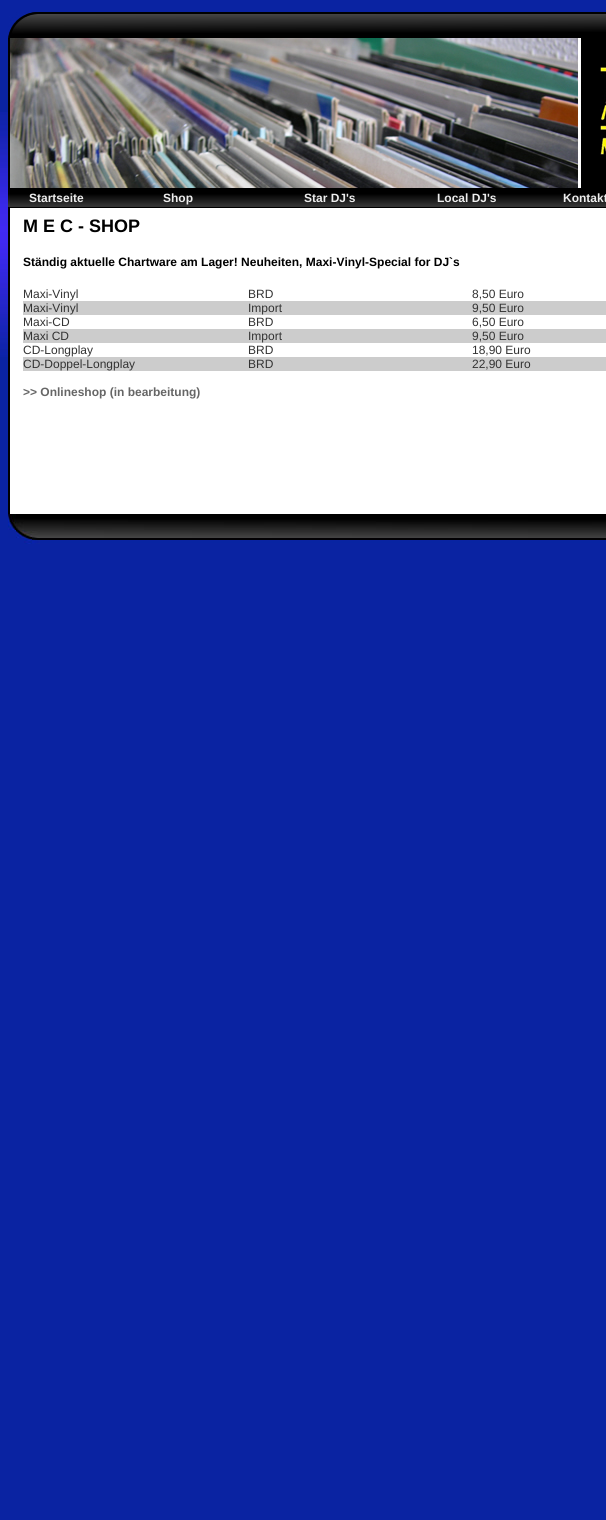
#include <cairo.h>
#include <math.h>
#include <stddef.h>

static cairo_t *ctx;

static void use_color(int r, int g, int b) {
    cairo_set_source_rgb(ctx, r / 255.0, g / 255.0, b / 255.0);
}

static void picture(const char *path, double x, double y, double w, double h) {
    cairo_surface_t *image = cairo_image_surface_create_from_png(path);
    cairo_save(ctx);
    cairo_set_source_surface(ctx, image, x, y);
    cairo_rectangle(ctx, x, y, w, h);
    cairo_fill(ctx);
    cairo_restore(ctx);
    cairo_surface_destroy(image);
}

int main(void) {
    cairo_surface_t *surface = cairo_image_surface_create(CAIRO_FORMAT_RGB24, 606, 1520);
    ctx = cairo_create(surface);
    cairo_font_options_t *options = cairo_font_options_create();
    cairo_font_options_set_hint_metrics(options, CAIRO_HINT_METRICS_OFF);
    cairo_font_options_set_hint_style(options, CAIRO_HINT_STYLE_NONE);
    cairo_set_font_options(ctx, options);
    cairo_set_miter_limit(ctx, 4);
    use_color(10, 35, 162);
    cairo_paint(ctx);
    picture("img1.png", 0, 112, 8, 245);
    picture("img2.png", 8, 12, 598, 26);
    picture("img3.png", 8, 38, 598, 150);
    picture("img4.png", 8, 188, 598, 20);
    cairo_select_font_face(ctx, "Liberation Sans", CAIRO_FONT_SLANT_NORMAL, CAIRO_FONT_WEIGHT_BOLD);
    cairo_set_font_size(ctx, 12);
    use_color(237, 237, 237);
    cairo_move_to(ctx, 29, 202);
    cairo_show_text(ctx, "Startseite");
    cairo_move_to(ctx, 163, 202);
    cairo_show_text(ctx, "Shop");
    cairo_move_to(ctx, 304, 202);
    cairo_show_text(ctx, "Star DJ's");
    cairo_move_to(ctx, 437, 202);
    cairo_show_text(ctx, "Local DJ's");
    cairo_move_to(ctx, 563, 202);
    cairo_show_text(ctx, "Kontakt");
    use_color(255, 255, 255);
    cairo_rectangle(ctx, 10, 208, 596, 306);
    cairo_fill(ctx);
    use_color(0, 0, 0);
    cairo_rectangle(ctx, 8, 208, 2, 306);
    cairo_fill(ctx);
    cairo_set_font_size(ctx, 18);
    cairo_move_to(ctx, 23, 232);
    cairo_show_text(ctx, "M E C - SHOP");
    cairo_set_font_size(ctx, 12);
    cairo_move_to(ctx, 23, 266);
    cairo_show_text(ctx, "Ständig aktuelle Chartware am Lager! Neuheiten, Maxi-Vinyl-Special for DJ`s");
    cairo_select_font_face(ctx, "Liberation Sans", CAIRO_FONT_SLANT_NORMAL, CAIRO_FONT_WEIGHT_NORMAL);
    use_color(51, 51, 51);
    cairo_move_to(ctx, 23, 298);
    cairo_show_text(ctx, "Maxi-Vinyl");
    cairo_move_to(ctx, 248, 298);
    cairo_show_text(ctx, "BRD");
    cairo_move_to(ctx, 472, 298);
    cairo_show_text(ctx, "8,50 Euro");
    use_color(204, 204, 204);
    cairo_rectangle(ctx, 23, 301, 583, 14);
    cairo_fill(ctx);
    use_color(51, 51, 51);
    cairo_move_to(ctx, 23, 312);
    cairo_show_text(ctx, "Maxi-Vinyl");
    cairo_move_to(ctx, 248, 312);
    cairo_show_text(ctx, "Import");
    cairo_move_to(ctx, 472, 312);
    cairo_show_text(ctx, "9,50 Euro");
    cairo_move_to(ctx, 23, 326);
    cairo_show_text(ctx, "Maxi-CD");
    cairo_move_to(ctx, 248, 326);
    cairo_show_text(ctx, "BRD");
    cairo_move_to(ctx, 472, 326);
    cairo_show_text(ctx, "6,50 Euro");
    use_color(204, 204, 204);
    cairo_rectangle(ctx, 23, 329, 583, 14);
    cairo_fill(ctx);
    use_color(51, 51, 51);
    cairo_move_to(ctx, 23, 340);
    cairo_show_text(ctx, "Maxi CD");
    cairo_move_to(ctx, 248, 340);
    cairo_show_text(ctx, "Import");
    cairo_move_to(ctx, 472, 340);
    cairo_show_text(ctx, "9,50 Euro");
    cairo_move_to(ctx, 23, 354);
    cairo_show_text(ctx, "CD-Longplay");
    cairo_move_to(ctx, 248, 354);
    cairo_show_text(ctx, "BRD");
    cairo_move_to(ctx, 472, 354);
    cairo_show_text(ctx, "18,90 Euro");
    use_color(204, 204, 204);
    cairo_rectangle(ctx, 23, 357, 583, 14);
    cairo_fill(ctx);
    use_color(51, 51, 51);
    cairo_move_to(ctx, 23, 368);
    cairo_show_text(ctx, "CD-Doppel-Longplay");
    cairo_move_to(ctx, 248, 368);
    cairo_show_text(ctx, "BRD");
    cairo_move_to(ctx, 472, 368);
    cairo_show_text(ctx, "22,90 Euro");
    cairo_select_font_face(ctx, "Liberation Sans", CAIRO_FONT_SLANT_NORMAL, CAIRO_FONT_WEIGHT_BOLD);
    use_color(102, 102, 102);
    cairo_move_to(ctx, 23, 396);
    cairo_show_text(ctx, ">> Onlineshop (in bearbeitung)");
    picture("img5.png", 8, 514, 598, 30);
    cairo_surface_write_to_png(surface, "result.png");
    cairo_font_options_destroy(options);
    cairo_destroy(ctx);
    cairo_surface_destroy(surface);
    return 0;
}
